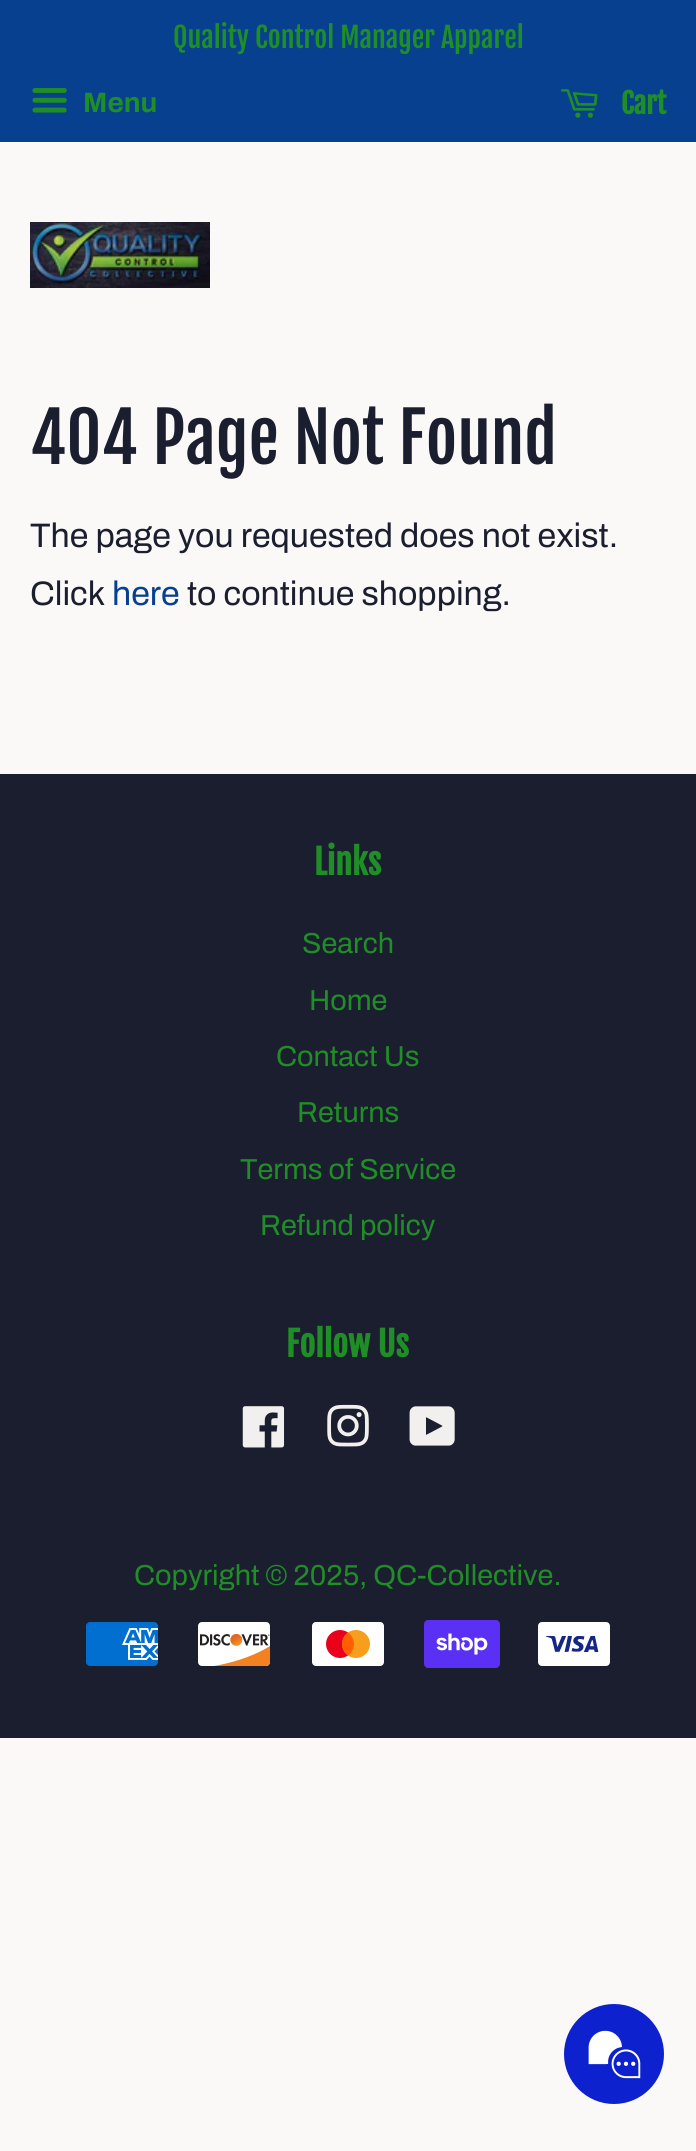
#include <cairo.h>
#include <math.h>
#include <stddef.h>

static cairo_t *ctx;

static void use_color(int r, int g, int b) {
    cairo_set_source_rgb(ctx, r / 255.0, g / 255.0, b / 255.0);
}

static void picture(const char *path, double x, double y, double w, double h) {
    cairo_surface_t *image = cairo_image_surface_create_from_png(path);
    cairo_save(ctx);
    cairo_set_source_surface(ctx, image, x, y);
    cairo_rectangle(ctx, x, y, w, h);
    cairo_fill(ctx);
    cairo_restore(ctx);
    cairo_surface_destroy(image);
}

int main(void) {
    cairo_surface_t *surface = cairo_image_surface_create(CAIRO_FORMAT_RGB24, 696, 2151);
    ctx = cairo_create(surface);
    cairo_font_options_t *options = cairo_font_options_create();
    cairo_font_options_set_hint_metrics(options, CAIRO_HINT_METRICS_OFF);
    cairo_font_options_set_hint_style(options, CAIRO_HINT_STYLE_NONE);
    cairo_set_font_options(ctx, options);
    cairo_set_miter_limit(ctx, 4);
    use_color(250, 249, 247);
    cairo_paint(ctx);
    use_color(7, 64, 143);
    cairo_rectangle(ctx, 0, 0, 696, 142);
    cairo_fill(ctx);
    cairo_select_font_face(ctx, "Fjalla One", CAIRO_FONT_SLANT_NORMAL, CAIRO_FONT_WEIGHT_NORMAL);
    cairo_set_font_size(ctx, 28);
    use_color(32, 142, 38);
    cairo_move_to(ctx, 173, 48);
    cairo_show_text(ctx, "Quality Control Manager Apparel");
    picture("img1.png", 32, 88, 35, 25);
    cairo_select_font_face(ctx, "Archivo", CAIRO_FONT_SLANT_NORMAL, CAIRO_FONT_WEIGHT_BOLD);
    cairo_move_to(ctx, 83, 112);
    cairo_show_text(ctx, "Menu");
    picture("img2.png", 560, 89, 38, 29);
    cairo_select_font_face(ctx, "Fjalla One", CAIRO_FONT_SLANT_NORMAL, CAIRO_FONT_WEIGHT_BOLD);
    cairo_move_to(ctx, 621, 114);
    cairo_show_text(ctx, "Cart");
    picture("img3.png", 30, 222, 180, 66);
    cairo_select_font_face(ctx, "Fjalla One", CAIRO_FONT_SLANT_NORMAL, CAIRO_FONT_WEIGHT_NORMAL);
    cairo_set_font_size(ctx, 68);
    use_color(27, 30, 47);
    cairo_move_to(ctx, 30, 464);
    cairo_show_text(ctx, "404 Page Not Found");
    cairo_select_font_face(ctx, "Archivo", CAIRO_FONT_SLANT_NORMAL, CAIRO_FONT_WEIGHT_NORMAL);
    cairo_set_font_size(ctx, 34);
    cairo_move_to(ctx, 30, 547);
    cairo_show_text(ctx, "The page you requested does not exist.");
    cairo_move_to(ctx, 30, 605);
    cairo_show_text(ctx, "Click");
    use_color(7, 64, 143);
    cairo_move_to(ctx, 112, 605);
    cairo_show_text(ctx, "here");
    use_color(27, 30, 47);
    cairo_move_to(ctx, 187, 605);
    cairo_show_text(ctx, "to continue shopping.");
    cairo_rectangle(ctx, 0, 774, 696, 964);
    cairo_fill(ctx);
    cairo_select_font_face(ctx, "Fjalla One", CAIRO_FONT_SLANT_NORMAL, CAIRO_FONT_WEIGHT_BOLD);
    use_color(32, 142, 38);
    cairo_move_to(ctx, 314, 875);
    cairo_show_text(ctx, "Links");
    cairo_select_font_face(ctx, "Archivo", CAIRO_FONT_SLANT_NORMAL, CAIRO_FONT_WEIGHT_NORMAL);
    cairo_set_font_size(ctx, 28.9);
    cairo_move_to(ctx, 302, 953);
    cairo_show_text(ctx, "Search");
    cairo_move_to(ctx, 309, 1010);
    cairo_show_text(ctx, "Home");
    cairo_move_to(ctx, 276, 1066);
    cairo_show_text(ctx, "Contact Us");
    cairo_move_to(ctx, 297, 1122);
    cairo_show_text(ctx, "Returns");
    cairo_move_to(ctx, 240, 1179);
    cairo_show_text(ctx, "Terms of Service");
    cairo_move_to(ctx, 260, 1235);
    cairo_show_text(ctx, "Refund policy");
    cairo_select_font_face(ctx, "Fjalla One", CAIRO_FONT_SLANT_NORMAL, CAIRO_FONT_WEIGHT_BOLD);
    cairo_set_font_size(ctx, 34);
    cairo_move_to(ctx, 286, 1357);
    cairo_show_text(ctx, "Follow Us");
    picture("img4.png", 242, 1406, 43, 42);
    picture("img5.png", 327, 1404, 42, 43);
    picture("img6.png", 409, 1406, 46, 40);
    cairo_select_font_face(ctx, "Archivo", CAIRO_FONT_SLANT_NORMAL, CAIRO_FONT_WEIGHT_NORMAL);
    cairo_set_font_size(ctx, 28.9);
    cairo_move_to(ctx, 134, 1585);
    cairo_show_text(ctx, "Copyright © 2025, QC-Collective.");
    picture("img7.png", 86, 1622, 72, 44);
    picture("img8.png", 198, 1622, 73, 44);
    picture("img9.png", 312, 1622, 72, 44);
    picture("img10.png", 424, 1620, 76, 48);
    picture("img11.png", 538, 1622, 72, 44);
    use_color(14, 33, 206);
    cairo_arc(ctx, 614, 2054, 50, 0, 2 * M_PI);
    cairo_fill(ctx);
    picture("img12.png", 588, 2030, 53, 49);
    cairo_surface_write_to_png(surface, "result.png");
    cairo_font_options_destroy(options);
    cairo_destroy(ctx);
    cairo_surface_destroy(surface);
    return 0;
}
